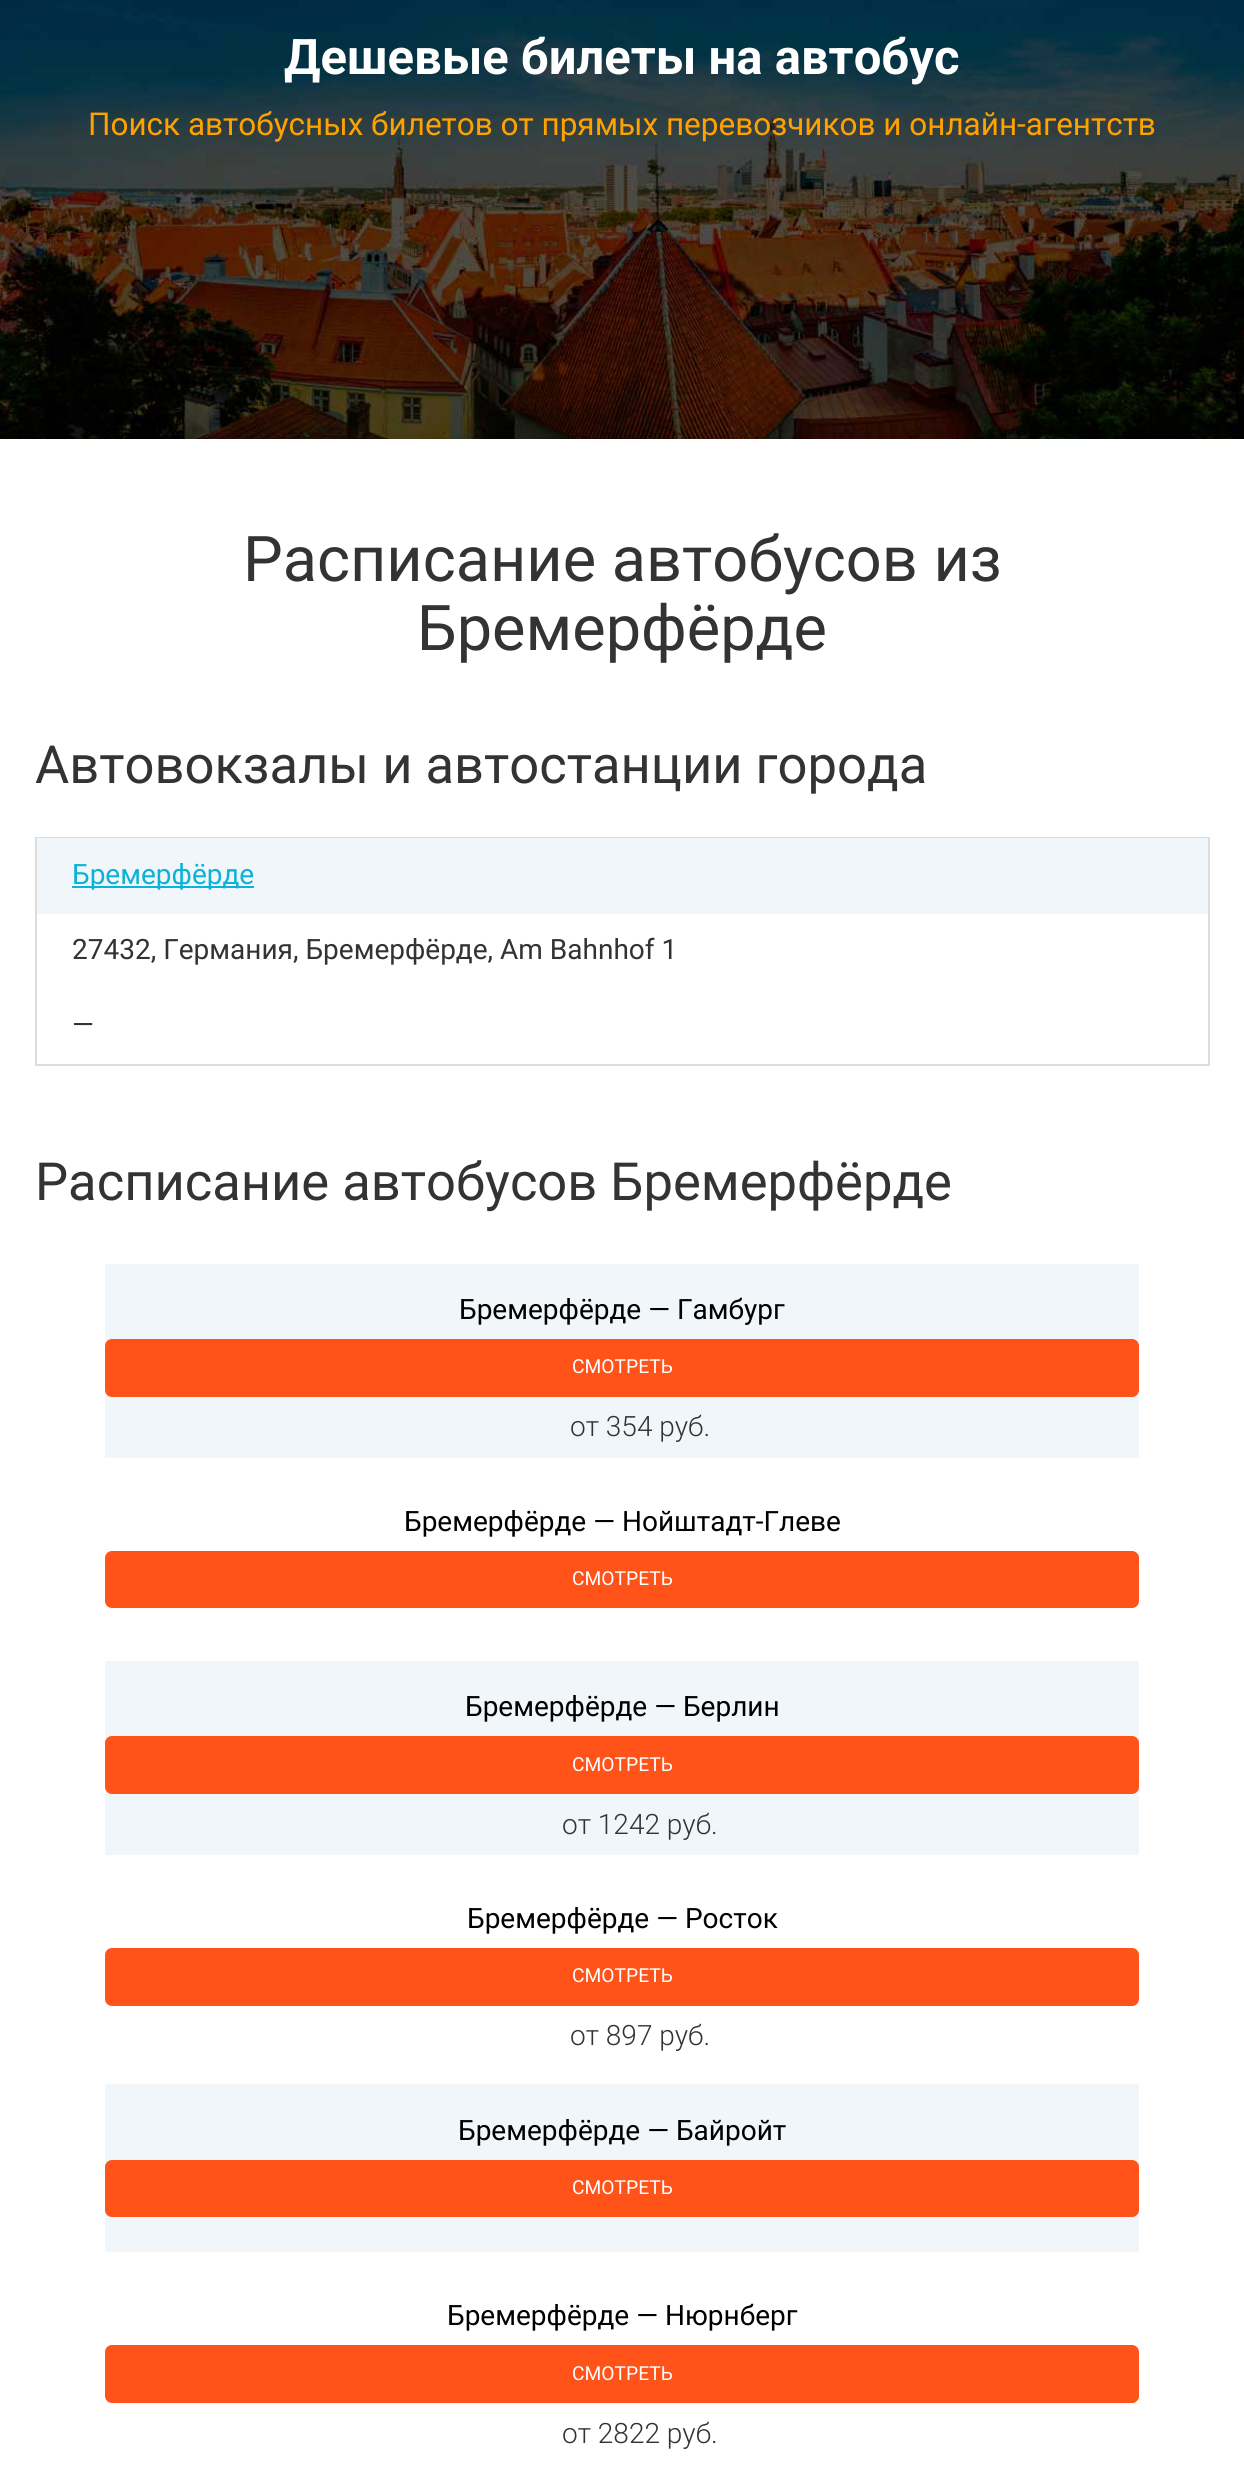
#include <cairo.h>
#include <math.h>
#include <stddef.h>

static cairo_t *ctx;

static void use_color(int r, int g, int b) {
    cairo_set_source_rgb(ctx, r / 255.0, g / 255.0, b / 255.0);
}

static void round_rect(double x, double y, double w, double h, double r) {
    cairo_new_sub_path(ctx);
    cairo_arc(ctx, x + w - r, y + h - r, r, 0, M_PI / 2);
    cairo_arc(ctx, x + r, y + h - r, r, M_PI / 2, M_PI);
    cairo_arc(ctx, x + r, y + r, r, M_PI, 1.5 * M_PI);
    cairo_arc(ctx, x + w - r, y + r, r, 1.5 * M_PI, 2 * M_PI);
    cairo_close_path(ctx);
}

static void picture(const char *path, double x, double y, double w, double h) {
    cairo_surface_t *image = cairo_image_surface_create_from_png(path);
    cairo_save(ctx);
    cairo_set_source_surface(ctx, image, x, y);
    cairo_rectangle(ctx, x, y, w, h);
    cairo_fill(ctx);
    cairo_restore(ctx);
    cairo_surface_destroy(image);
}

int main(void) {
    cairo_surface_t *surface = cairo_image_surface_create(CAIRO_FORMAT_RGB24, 1244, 2475);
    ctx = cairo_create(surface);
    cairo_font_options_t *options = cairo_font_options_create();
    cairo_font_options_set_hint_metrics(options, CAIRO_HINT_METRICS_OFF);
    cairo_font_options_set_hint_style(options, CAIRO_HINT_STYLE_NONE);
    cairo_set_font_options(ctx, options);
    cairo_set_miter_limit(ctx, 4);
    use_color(255, 255, 255);
    cairo_paint(ctx);
    picture("img1.png", 0, 0, 1244, 439);
    cairo_select_font_face(ctx, "Roboto", CAIRO_FONT_SLANT_NORMAL, CAIRO_FONT_WEIGHT_BOLD);
    cairo_set_font_size(ctx, 49);
    use_color(255, 255, 255);
    cairo_move_to(ctx, 284, 74);
    cairo_show_text(ctx, "Дешевые билеты на автобус");
    cairo_select_font_face(ctx, "Roboto", CAIRO_FONT_SLANT_NORMAL, CAIRO_FONT_WEIGHT_NORMAL);
    cairo_set_font_size(ctx, 31.5);
    use_color(255, 162, 0);
    cairo_move_to(ctx, 88, 135);
    cairo_show_text(ctx, "Поиск автобусных билетов от прямых перевозчиков и онлайн-агентств");
    cairo_set_font_size(ctx, 63);
    use_color(51, 51, 51);
    cairo_move_to(ctx, 243, 581);
    cairo_show_text(ctx, "Расписание автобусов из");
    cairo_move_to(ctx, 417, 650);
    cairo_show_text(ctx, "Бремерфёрде");
    cairo_set_font_size(ctx, 52.5);
    cairo_move_to(ctx, 35, 783);
    cairo_show_text(ctx, "Автовокзалы и автостанции города");
    use_color(221, 221, 221);
    cairo_rectangle(ctx, 35, 837, 1174, 1);
    cairo_fill(ctx);
    cairo_rectangle(ctx, 1208, 837, 2, 229);
    cairo_fill(ctx);
    cairo_rectangle(ctx, 35, 1064, 1174, 2);
    cairo_fill(ctx);
    cairo_rectangle(ctx, 35, 837, 2, 229);
    cairo_fill(ctx);
    use_color(240, 246, 249);
    cairo_rectangle(ctx, 37, 838, 1171, 76);
    cairo_fill(ctx);
    use_color(10, 179, 215);
    cairo_rectangle(ctx, 72, 886, 182, 2);
    cairo_fill(ctx);
    cairo_set_font_size(ctx, 28);
    cairo_move_to(ctx, 72, 884);
    cairo_show_text(ctx, "Бремерфёрде");
    use_color(51, 51, 51);
    cairo_move_to(ctx, 72, 959);
    cairo_show_text(ctx, "27432, Германия, Бремерфёрде, Am Bahnhof 1");
    cairo_move_to(ctx, 72, 1034);
    cairo_show_text(ctx, "—");
    cairo_set_font_size(ctx, 52.5);
    cairo_move_to(ctx, 35, 1200);
    cairo_show_text(ctx, "Расписание автобусов Бремерфёрде");
    use_color(240, 246, 249);
    cairo_rectangle(ctx, 105, 1264, 1034, 194);
    cairo_fill(ctx);
    cairo_set_font_size(ctx, 28);
    use_color(0, 0, 0);
    cairo_move_to(ctx, 459, 1319);
    cairo_show_text(ctx, "Бремерфёрде — Гамбург");
    use_color(255, 83, 26);
    round_rect(106, 1340, 1032, 56, 6);
    cairo_fill_preserve(ctx);
    cairo_stroke(ctx);
    cairo_set_font_size(ctx, 19.25);
    use_color(255, 255, 255);
    cairo_move_to(ctx, 572, 1373);
    cairo_show_text(ctx, "СМОТРЕТЬ");
    cairo_select_font_face(ctx, "Roboto Light", CAIRO_FONT_SLANT_NORMAL, CAIRO_FONT_WEIGHT_NORMAL);
    cairo_set_font_size(ctx, 28);
    use_color(51, 51, 51);
    cairo_move_to(ctx, 570, 1436);
    cairo_show_text(ctx, "от 354 руб.");
    cairo_select_font_face(ctx, "Roboto", CAIRO_FONT_SLANT_NORMAL, CAIRO_FONT_WEIGHT_NORMAL);
    use_color(0, 0, 0);
    cairo_move_to(ctx, 404, 1531);
    cairo_show_text(ctx, "Бремерфёрде — Нойштадт-Глеве");
    use_color(255, 83, 26);
    round_rect(106, 1552, 1032, 55, 6);
    cairo_fill_preserve(ctx);
    cairo_stroke(ctx);
    cairo_set_font_size(ctx, 19.25);
    use_color(255, 255, 255);
    cairo_move_to(ctx, 572, 1585);
    cairo_show_text(ctx, "СМОТРЕТЬ");
    use_color(240, 246, 249);
    cairo_rectangle(ctx, 105, 1661, 1034, 194);
    cairo_fill(ctx);
    cairo_set_font_size(ctx, 28);
    use_color(0, 0, 0);
    cairo_move_to(ctx, 465, 1716);
    cairo_show_text(ctx, "Бремерфёрде — Берлин");
    use_color(255, 83, 26);
    round_rect(106, 1737, 1032, 56, 6);
    cairo_fill_preserve(ctx);
    cairo_stroke(ctx);
    cairo_set_font_size(ctx, 19.25);
    use_color(255, 255, 255);
    cairo_move_to(ctx, 572, 1771);
    cairo_show_text(ctx, "СМОТРЕТЬ");
    cairo_select_font_face(ctx, "Roboto Light", CAIRO_FONT_SLANT_NORMAL, CAIRO_FONT_WEIGHT_NORMAL);
    cairo_set_font_size(ctx, 28);
    use_color(51, 51, 51);
    cairo_move_to(ctx, 562, 1834);
    cairo_show_text(ctx, "от 1242 руб.");
    cairo_select_font_face(ctx, "Roboto", CAIRO_FONT_SLANT_NORMAL, CAIRO_FONT_WEIGHT_NORMAL);
    use_color(0, 0, 0);
    cairo_move_to(ctx, 467, 1928);
    cairo_show_text(ctx, "Бремерфёрде — Росток");
    use_color(255, 83, 26);
    round_rect(106, 1949, 1032, 56, 6);
    cairo_fill_preserve(ctx);
    cairo_stroke(ctx);
    cairo_set_font_size(ctx, 19.25);
    use_color(255, 255, 255);
    cairo_move_to(ctx, 572, 1982);
    cairo_show_text(ctx, "СМОТРЕТЬ");
    cairo_select_font_face(ctx, "Roboto Light", CAIRO_FONT_SLANT_NORMAL, CAIRO_FONT_WEIGHT_NORMAL);
    cairo_set_font_size(ctx, 28);
    use_color(51, 51, 51);
    cairo_move_to(ctx, 570, 2045);
    cairo_show_text(ctx, "от 897 руб.");
    use_color(240, 246, 249);
    cairo_rectangle(ctx, 105, 2084, 1034, 168);
    cairo_fill(ctx);
    cairo_select_font_face(ctx, "Roboto", CAIRO_FONT_SLANT_NORMAL, CAIRO_FONT_WEIGHT_NORMAL);
    use_color(0, 0, 0);
    cairo_move_to(ctx, 458, 2140);
    cairo_show_text(ctx, "Бремерфёрде — Байройт");
    use_color(255, 83, 26);
    round_rect(106, 2161, 1032, 55, 6);
    cairo_fill_preserve(ctx);
    cairo_stroke(ctx);
    cairo_set_font_size(ctx, 19.25);
    use_color(255, 255, 255);
    cairo_move_to(ctx, 572, 2194);
    cairo_show_text(ctx, "СМОТРЕТЬ");
    cairo_set_font_size(ctx, 28);
    use_color(0, 0, 0);
    cairo_move_to(ctx, 447, 2325);
    cairo_show_text(ctx, "Бремерфёрде — Нюрнберг");
    use_color(255, 83, 26);
    round_rect(106, 2346, 1032, 56, 6);
    cairo_fill_preserve(ctx);
    cairo_stroke(ctx);
    cairo_set_font_size(ctx, 19.25);
    use_color(255, 255, 255);
    cairo_move_to(ctx, 572, 2380);
    cairo_show_text(ctx, "СМОТРЕТЬ");
    cairo_select_font_face(ctx, "Roboto Light", CAIRO_FONT_SLANT_NORMAL, CAIRO_FONT_WEIGHT_NORMAL);
    cairo_set_font_size(ctx, 28);
    use_color(51, 51, 51);
    cairo_move_to(ctx, 562, 2443);
    cairo_show_text(ctx, "от 2822 руб.");
    cairo_surface_write_to_png(surface, "result.png");
    cairo_font_options_destroy(options);
    cairo_destroy(ctx);
    cairo_surface_destroy(surface);
    return 0;
}
